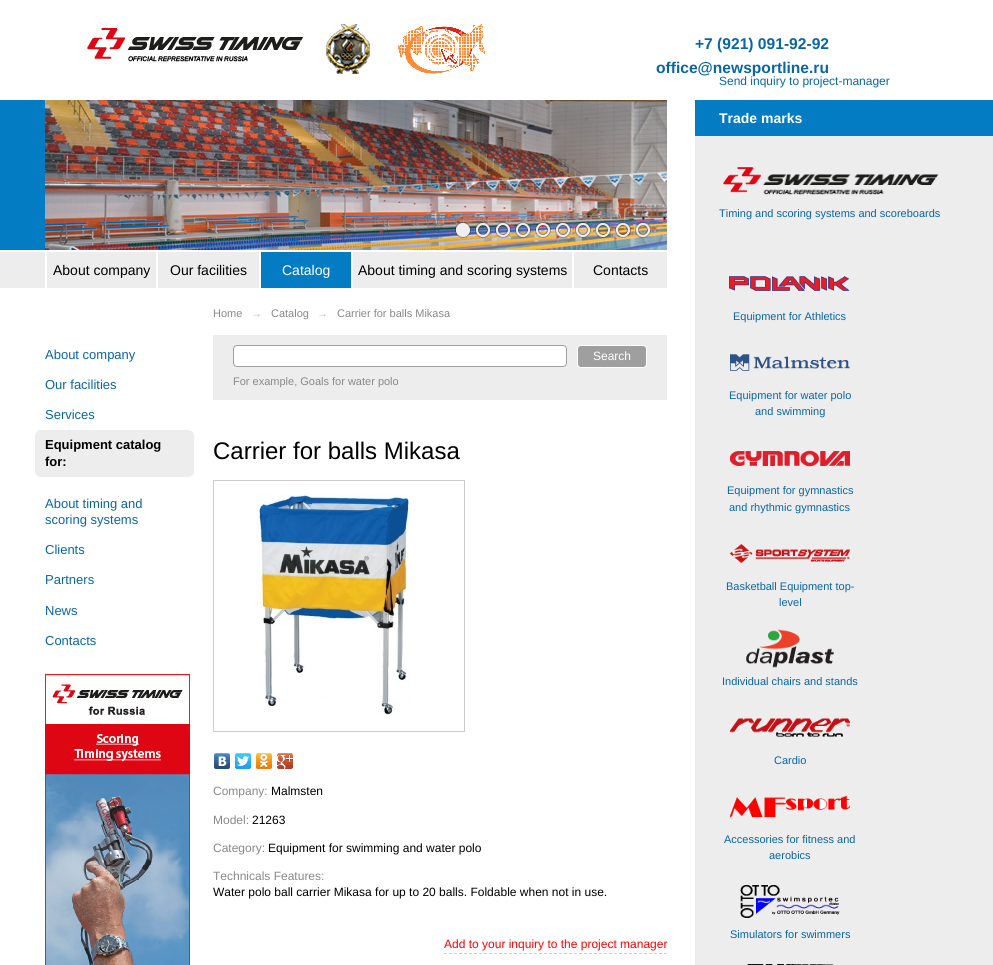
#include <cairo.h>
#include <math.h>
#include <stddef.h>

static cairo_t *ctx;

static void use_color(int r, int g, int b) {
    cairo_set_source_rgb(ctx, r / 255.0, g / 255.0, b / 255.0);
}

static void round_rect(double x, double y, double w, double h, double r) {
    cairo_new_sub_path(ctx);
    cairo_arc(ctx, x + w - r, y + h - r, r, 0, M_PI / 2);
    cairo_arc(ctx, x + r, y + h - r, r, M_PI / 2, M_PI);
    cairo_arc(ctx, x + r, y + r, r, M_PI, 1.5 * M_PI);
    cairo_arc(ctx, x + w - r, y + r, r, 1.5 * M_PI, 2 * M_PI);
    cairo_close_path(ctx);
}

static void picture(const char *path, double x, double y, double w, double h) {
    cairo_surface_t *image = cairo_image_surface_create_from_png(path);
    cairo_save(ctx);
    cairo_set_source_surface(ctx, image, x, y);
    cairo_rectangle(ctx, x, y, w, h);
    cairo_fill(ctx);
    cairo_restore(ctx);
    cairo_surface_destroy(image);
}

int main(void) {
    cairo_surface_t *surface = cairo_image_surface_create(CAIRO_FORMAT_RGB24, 993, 965);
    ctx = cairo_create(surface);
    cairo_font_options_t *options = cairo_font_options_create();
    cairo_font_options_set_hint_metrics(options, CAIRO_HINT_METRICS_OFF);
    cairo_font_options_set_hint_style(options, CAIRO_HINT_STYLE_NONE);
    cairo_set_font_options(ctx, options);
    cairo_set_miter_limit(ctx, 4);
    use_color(255, 255, 255);
    cairo_paint(ctx);
    picture("img1.png", 87, 28, 216, 34);
    picture("img2.png", 326, 24, 44, 50);
    picture("img3.png", 396, 24, 89, 50);
    cairo_select_font_face(ctx, "Liberation Sans", CAIRO_FONT_SLANT_NORMAL, CAIRO_FONT_WEIGHT_BOLD);
    cairo_set_font_size(ctx, 15.6);
    use_color(9, 101, 166);
    cairo_move_to(ctx, 695, 49);
    cairo_show_text(ctx, "+7 (921) 091-92-92");
    cairo_move_to(ctx, 656, 73);
    cairo_show_text(ctx, "office@newsportline.ru");
    cairo_select_font_face(ctx, "Liberation Sans", CAIRO_FONT_SLANT_NORMAL, CAIRO_FONT_WEIGHT_NORMAL);
    cairo_set_font_size(ctx, 12);
    cairo_move_to(ctx, 719, 85);
    cairo_show_text(ctx, "Send inquiry to project-manager");
    use_color(3, 124, 195);
    cairo_rectangle(ctx, 0, 100, 45, 150);
    cairo_fill(ctx);
    picture("img4.png", 45, 100, 622, 150);
    picture("img5.png", 455, 222, 16, 16);
    picture("img6.png", 475, 222, 16, 16);
    picture("img7.png", 495, 222, 16, 16);
    picture("img8.png", 515, 222, 16, 16);
    picture("img9.png", 535, 222, 16, 16);
    picture("img10.png", 555, 222, 16, 16);
    picture("img11.png", 575, 222, 16, 16);
    picture("img12.png", 595, 222, 16, 16);
    picture("img13.png", 615, 222, 16, 16);
    picture("img14.png", 635, 222, 16, 16);
    use_color(237, 237, 237);
    cairo_rectangle(ctx, 0, 252, 667, 36);
    cairo_fill(ctx);
    use_color(255, 255, 255);
    cairo_rectangle(ctx, 45, 251, 2, 38);
    cairo_fill(ctx);
    cairo_set_font_size(ctx, 14);
    use_color(0, 0, 0);
    cairo_move_to(ctx, 53, 275);
    cairo_show_text(ctx, "About company");
    use_color(255, 255, 255);
    cairo_rectangle(ctx, 156, 251, 2, 38);
    cairo_fill(ctx);
    use_color(0, 0, 0);
    cairo_move_to(ctx, 170, 275);
    cairo_show_text(ctx, "Our facilities");
    use_color(255, 255, 255);
    cairo_rectangle(ctx, 259, 251, 2, 38);
    cairo_fill(ctx);
    use_color(3, 124, 195);
    cairo_rectangle(ctx, 261, 252, 90, 36);
    cairo_fill(ctx);
    use_color(255, 255, 255);
    cairo_move_to(ctx, 282, 275);
    cairo_show_text(ctx, "Catalog");
    cairo_rectangle(ctx, 351, 251, 2, 38);
    cairo_fill(ctx);
    use_color(0, 0, 0);
    cairo_move_to(ctx, 358, 275);
    cairo_show_text(ctx, "About timing and scoring systems");
    use_color(255, 255, 255);
    cairo_rectangle(ctx, 572, 251, 2, 38);
    cairo_fill(ctx);
    use_color(0, 0, 0);
    cairo_move_to(ctx, 593, 275);
    cairo_show_text(ctx, "Contacts");
    cairo_set_font_size(ctx, 11);
    use_color(136, 136, 136);
    cairo_move_to(ctx, 213, 317);
    cairo_show_text(ctx, "Home");
    use_color(187, 187, 187);
    cairo_move_to(ctx, 251, 317);
    cairo_show_text(ctx, "→");
    use_color(136, 136, 136);
    cairo_move_to(ctx, 271, 317);
    cairo_show_text(ctx, "Catalog");
    use_color(187, 187, 187);
    cairo_move_to(ctx, 317, 317);
    cairo_show_text(ctx, "→");
    use_color(136, 136, 136);
    cairo_move_to(ctx, 337, 317);
    cairo_show_text(ctx, "Carrier for balls Mikasa");
    cairo_set_font_size(ctx, 13);
    use_color(9, 101, 166);
    cairo_move_to(ctx, 45, 359);
    cairo_show_text(ctx, "About company");
    cairo_move_to(ctx, 45, 389);
    cairo_show_text(ctx, "Our facilities");
    cairo_move_to(ctx, 45, 419);
    cairo_show_text(ctx, "Services");
    use_color(237, 237, 237);
    round_rect(35, 430, 159, 47, 6);
    cairo_fill(ctx);
    cairo_select_font_face(ctx, "Liberation Sans", CAIRO_FONT_SLANT_NORMAL, CAIRO_FONT_WEIGHT_BOLD);
    use_color(0, 0, 0);
    cairo_move_to(ctx, 45, 449);
    cairo_show_text(ctx, "Equipment catalog");
    cairo_move_to(ctx, 45, 466);
    cairo_show_text(ctx, "for:");
    cairo_select_font_face(ctx, "Liberation Sans", CAIRO_FONT_SLANT_NORMAL, CAIRO_FONT_WEIGHT_NORMAL);
    use_color(9, 101, 166);
    cairo_move_to(ctx, 45, 508);
    cairo_show_text(ctx, "About timing and");
    cairo_move_to(ctx, 45, 524);
    cairo_show_text(ctx, "scoring systems");
    cairo_move_to(ctx, 45, 554);
    cairo_show_text(ctx, "Clients");
    cairo_move_to(ctx, 45, 584);
    cairo_show_text(ctx, "Partners");
    cairo_move_to(ctx, 45, 615);
    cairo_show_text(ctx, "News");
    cairo_move_to(ctx, 45, 645);
    cairo_show_text(ctx, "Contacts");
    picture("img15.png", 45, 674, 145, 291);
    use_color(237, 237, 237);
    cairo_rectangle(ctx, 213, 335, 454, 65);
    cairo_fill(ctx);
    use_color(255, 255, 255);
    round_rect(233.5, 345.5, 333, 21, 3.5);
    cairo_fill_preserve(ctx);
    use_color(159, 159, 159);
    cairo_set_line_width(ctx, 1);
    cairo_stroke(ctx);
    round_rect(577.5, 345.5, 69, 22, 3.5);
    cairo_fill_preserve(ctx);
    use_color(255, 255, 255);
    cairo_stroke(ctx);
    cairo_set_font_size(ctx, 12);
    cairo_move_to(ctx, 593, 360);
    cairo_show_text(ctx, "Search");
    cairo_set_font_size(ctx, 11);
    use_color(136, 136, 136);
    cairo_move_to(ctx, 233, 385);
    cairo_show_text(ctx, "For example, Goals for water polo");
    cairo_set_font_size(ctx, 24);
    use_color(0, 0, 0);
    cairo_move_to(ctx, 213, 459);
    cairo_show_text(ctx, "Carrier for balls Mikasa");
    cairo_rectangle(ctx, 213.5, 480.5, 251, 251);
    use_color(204, 204, 204);
    cairo_stroke(ctx);
    picture("img16.png", 255, 493, 155, 222);
    picture("img17.png", 214, 753, 16, 16);
    picture("img18.png", 235, 753, 16, 16);
    picture("img19.png", 256, 753, 16, 16);
    picture("img20.png", 277, 753, 16, 16);
    cairo_set_font_size(ctx, 12);
    use_color(136, 136, 136);
    cairo_move_to(ctx, 213, 795);
    cairo_show_text(ctx, "Company:");
    use_color(0, 0, 0);
    cairo_move_to(ctx, 271, 795);
    cairo_show_text(ctx, "Malmsten");
    use_color(136, 136, 136);
    cairo_move_to(ctx, 213, 824);
    cairo_show_text(ctx, "Model:");
    use_color(0, 0, 0);
    cairo_move_to(ctx, 252, 824);
    cairo_show_text(ctx, "21263");
    use_color(136, 136, 136);
    cairo_move_to(ctx, 213, 852);
    cairo_show_text(ctx, "Category:");
    use_color(0, 0, 0);
    cairo_move_to(ctx, 268, 852);
    cairo_show_text(ctx, "Equipment for swimming and water polo");
    use_color(136, 136, 136);
    cairo_move_to(ctx, 213, 880);
    cairo_show_text(ctx, "Technicals Features:");
    use_color(0, 0, 0);
    cairo_move_to(ctx, 213, 896);
    cairo_show_text(ctx, "Water polo ball carrier Mikasa for up to 20 balls. Foldable when not in use.");
    cairo_new_path(ctx);
    cairo_move_to(ctx, 444, 953.5);
    cairo_line_to(ctx, 667, 953.5);
    use_color(255, 187, 187);
    cairo_set_dash(ctx, (double[]){3, 2}, 2, 0);
    cairo_stroke(ctx);
    use_color(255, 0, 0);
    cairo_move_to(ctx, 444, 948);
    cairo_show_text(ctx, "Add to your inquiry to the project manager");
    use_color(237, 237, 237);
    cairo_rectangle(ctx, 695, 136, 298, 829);
    cairo_fill(ctx);
    use_color(3, 124, 195);
    cairo_rectangle(ctx, 695, 100, 298, 36);
    cairo_fill(ctx);
    cairo_select_font_face(ctx, "Liberation Sans", CAIRO_FONT_SLANT_NORMAL, CAIRO_FONT_WEIGHT_BOLD);
    cairo_set_font_size(ctx, 14);
    use_color(255, 255, 255);
    cairo_move_to(ctx, 719, 123);
    cairo_show_text(ctx, "Trade marks");
    picture("img21.png", 723, 167, 216, 28);
    cairo_select_font_face(ctx, "Liberation Sans", CAIRO_FONT_SLANT_NORMAL, CAIRO_FONT_WEIGHT_NORMAL);
    cairo_set_font_size(ctx, 11);
    use_color(9, 101, 166);
    cairo_move_to(ctx, 719, 217);
    cairo_show_text(ctx, "Timing and scoring systems and scoreboards");
    picture("img22.png", 729, 276, 121, 15);
    cairo_move_to(ctx, 733, 320);
    cairo_show_text(ctx, "Equipment for Athletics");
    picture("img23.png", 730, 354, 120, 17);
    cairo_move_to(ctx, 729, 399);
    cairo_show_text(ctx, "Equipment for water polo");
    cairo_move_to(ctx, 755, 415);
    cairo_show_text(ctx, "and swimming");
    picture("img24.png", 729, 450, 121, 17);
    cairo_move_to(ctx, 727, 494);
    cairo_show_text(ctx, "Equipment for gymnastics");
    cairo_move_to(ctx, 729, 511);
    cairo_show_text(ctx, "and rhythmic gymnastics");
    picture("img25.png", 730, 543, 120, 21);
    cairo_move_to(ctx, 726, 590);
    cairo_show_text(ctx, "Basketball Equipment top-");
    cairo_move_to(ctx, 779, 606);
    cairo_show_text(ctx, "level");
    picture("img26.png", 746, 629, 88, 39);
    cairo_move_to(ctx, 722, 685);
    cairo_show_text(ctx, "Individual chairs and stands");
    picture("img27.png", 730, 718, 120, 19);
    cairo_move_to(ctx, 774, 764);
    cairo_show_text(ctx, "Cardio");
    picture("img28.png", 730, 795, 120, 23);
    cairo_move_to(ctx, 724, 843);
    cairo_show_text(ctx, "Accessories for fitness and");
    cairo_move_to(ctx, 769, 859);
    cairo_show_text(ctx, "aerobics");
    picture("img29.png", 740, 885, 100, 33);
    cairo_move_to(ctx, 730, 938);
    cairo_show_text(ctx, "Simulators for swimmers");
    picture("img30.png", 747, 964, 87, 1);
    cairo_surface_write_to_png(surface, "result.png");
    cairo_font_options_destroy(options);
    cairo_destroy(ctx);
    cairo_surface_destroy(surface);
    return 0;
}
